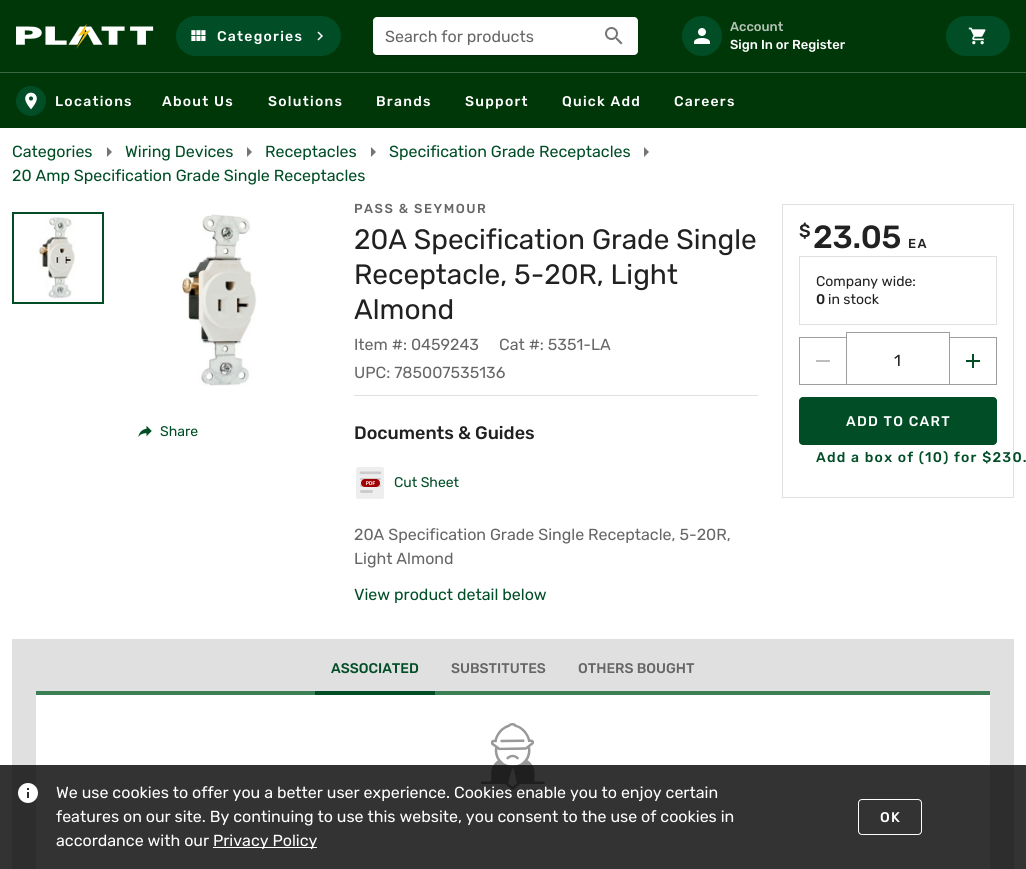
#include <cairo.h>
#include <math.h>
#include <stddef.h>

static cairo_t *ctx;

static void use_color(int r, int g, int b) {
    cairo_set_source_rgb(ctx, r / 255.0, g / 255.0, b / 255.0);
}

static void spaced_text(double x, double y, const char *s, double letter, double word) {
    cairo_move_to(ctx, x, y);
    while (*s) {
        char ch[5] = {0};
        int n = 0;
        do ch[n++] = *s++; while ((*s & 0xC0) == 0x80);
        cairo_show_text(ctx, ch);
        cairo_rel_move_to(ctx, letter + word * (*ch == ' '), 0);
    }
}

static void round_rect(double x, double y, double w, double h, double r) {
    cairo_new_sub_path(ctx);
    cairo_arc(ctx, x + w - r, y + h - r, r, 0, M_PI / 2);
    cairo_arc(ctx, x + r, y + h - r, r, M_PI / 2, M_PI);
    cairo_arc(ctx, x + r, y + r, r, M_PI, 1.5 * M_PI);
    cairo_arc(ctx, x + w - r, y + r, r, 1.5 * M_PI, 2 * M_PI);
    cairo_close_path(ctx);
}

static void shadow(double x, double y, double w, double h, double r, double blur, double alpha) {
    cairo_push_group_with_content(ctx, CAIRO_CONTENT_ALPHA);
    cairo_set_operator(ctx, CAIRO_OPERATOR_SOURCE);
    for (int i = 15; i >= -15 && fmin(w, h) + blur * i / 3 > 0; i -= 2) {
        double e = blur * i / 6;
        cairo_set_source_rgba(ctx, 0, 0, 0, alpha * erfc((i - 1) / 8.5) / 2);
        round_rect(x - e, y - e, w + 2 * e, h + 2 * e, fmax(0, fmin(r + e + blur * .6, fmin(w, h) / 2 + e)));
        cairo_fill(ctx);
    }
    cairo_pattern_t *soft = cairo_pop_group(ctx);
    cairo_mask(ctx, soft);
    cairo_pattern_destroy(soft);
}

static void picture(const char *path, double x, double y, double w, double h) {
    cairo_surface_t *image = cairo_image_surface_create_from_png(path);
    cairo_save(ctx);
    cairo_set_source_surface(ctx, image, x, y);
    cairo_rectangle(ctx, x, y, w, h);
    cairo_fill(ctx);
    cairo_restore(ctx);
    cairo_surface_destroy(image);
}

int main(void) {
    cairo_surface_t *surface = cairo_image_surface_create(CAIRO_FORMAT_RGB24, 1026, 869);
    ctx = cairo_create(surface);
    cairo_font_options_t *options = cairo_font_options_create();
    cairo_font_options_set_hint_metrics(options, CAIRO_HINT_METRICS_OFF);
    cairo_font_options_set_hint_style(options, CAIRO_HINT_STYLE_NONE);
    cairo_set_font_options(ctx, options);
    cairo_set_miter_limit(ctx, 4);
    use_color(255, 255, 255);
    cairo_paint(ctx);
    use_color(0, 55, 8);
    cairo_rectangle(ctx, 0, 0, 1026, 128);
    cairo_fill(ctx);
    picture("img1.png", 16, 24, 138, 25);
    use_color(0, 77, 38);
    round_rect(176, 16, 165, 40, 20);
    cairo_fill(ctx);
    picture("img2.png", 191, 30, 15, 11);
    cairo_select_font_face(ctx, "Rubik Medium", CAIRO_FONT_SLANT_NORMAL, CAIRO_FONT_WEIGHT_NORMAL);
    cairo_set_font_size(ctx, 14);
    use_color(255, 255, 255);
    spaced_text(217, 41, "Categories", 1.25, 0);
    picture("img3.png", 317, 31, 6, 10);
    use_color(0, 0, 0);
    shadow(375, 22, 261, 34, 2, 0.5, 0.2);
    use_color(255, 255, 255);
    round_rect(373, 17, 265, 38, 4);
    cairo_fill(ctx);
    cairo_select_font_face(ctx, "Rubik", CAIRO_FONT_SLANT_NORMAL, CAIRO_FONT_WEIGHT_NORMAL);
    cairo_set_font_size(ctx, 16);
    use_color(102, 102, 102);
    cairo_move_to(ctx, 385, 42);
    cairo_show_text(ctx, "Search for products");
    picture("img4.png", 605, 27, 18, 18);
    use_color(0, 77, 38);
    cairo_arc(ctx, 702, 36, 20, 0, 2 * M_PI);
    cairo_fill(ctx);
    picture("img5.png", 694, 28, 16, 16);
    cairo_select_font_face(ctx, "Rubik Medium", CAIRO_FONT_SLANT_NORMAL, CAIRO_FONT_WEIGHT_NORMAL);
    cairo_set_font_size(ctx, 13);
    use_color(179, 195, 181);
    cairo_move_to(ctx, 730, 31);
    cairo_show_text(ctx, "Account");
    use_color(255, 255, 255);
    cairo_move_to(ctx, 730, 49);
    cairo_show_text(ctx, "Sign In or Register");
    use_color(0, 77, 38);
    round_rect(946, 16, 64, 40, 20);
    cairo_fill(ctx);
    picture("img6.png", 968, 27, 18, 18);
    use_color(61, 103, 67);
    cairo_rectangle(ctx, 0, 72, 1026, 1);
    cairo_fill(ctx);
    use_color(0, 77, 38);
    cairo_arc(ctx, 31, 101, 15, 0, 2 * M_PI);
    cairo_fill(ctx);
    picture("img7.png", 25, 92, 12, 18);
    cairo_set_font_size(ctx, 14);
    use_color(255, 255, 255);
    spaced_text(55, 106, "Locations", 1.25, 0);
    spaced_text(162, 106, "About Us", 1.25, 0);
    spaced_text(268, 106, "Solutions", 1.25, 0);
    spaced_text(376, 106, "Brands", 1.25, 0);
    spaced_text(465, 106, "Support", 1.25, 0);
    spaced_text(562, 106, "Quick Add", 1.25, 0);
    spaced_text(674, 106, "Careers", 1.25, 0);
    cairo_select_font_face(ctx, "Rubik", CAIRO_FONT_SLANT_NORMAL, CAIRO_FONT_WEIGHT_NORMAL);
    cairo_set_font_size(ctx, 16);
    use_color(0, 77, 38);
    cairo_move_to(ctx, 12, 157);
    cairo_show_text(ctx, "Categories");
    use_color(117, 117, 117);
    cairo_new_path(ctx);
    cairo_move_to(ctx, 107, 157);
    cairo_line_to(ctx, 112, 152);
    cairo_line_to(ctx, 107, 147);
    cairo_close_path(ctx);
    cairo_fill(ctx);
    use_color(0, 77, 38);
    cairo_move_to(ctx, 125, 157);
    cairo_show_text(ctx, "Wiring Devices");
    use_color(117, 117, 117);
    cairo_new_path(ctx);
    cairo_move_to(ctx, 247, 157);
    cairo_line_to(ctx, 252, 152);
    cairo_line_to(ctx, 247, 147);
    cairo_close_path(ctx);
    cairo_fill(ctx);
    use_color(0, 77, 38);
    cairo_move_to(ctx, 265, 157);
    cairo_show_text(ctx, "Receptacles");
    use_color(117, 117, 117);
    cairo_new_path(ctx);
    cairo_move_to(ctx, 371, 157);
    cairo_line_to(ctx, 376, 152);
    cairo_line_to(ctx, 371, 147);
    cairo_close_path(ctx);
    cairo_fill(ctx);
    use_color(0, 77, 38);
    cairo_move_to(ctx, 389, 157);
    cairo_show_text(ctx, "Specification Grade Receptacles");
    use_color(117, 117, 117);
    cairo_new_path(ctx);
    cairo_move_to(ctx, 644, 157);
    cairo_line_to(ctx, 649, 152);
    cairo_line_to(ctx, 644, 147);
    cairo_close_path(ctx);
    cairo_fill(ctx);
    use_color(0, 77, 38);
    cairo_move_to(ctx, 12, 181);
    cairo_show_text(ctx, "20 Amp Specification Grade Single Receptacles");
    cairo_rectangle(ctx, 13, 213, 90, 90);
    cairo_stroke(ctx);
    picture("img8.png", 32, 215, 44, 84);
    picture("img9.png", 180, 214, 77, 172);
    picture("img10.png", 138, 425, 14, 12);
    cairo_set_font_size(ctx, 14);
    cairo_move_to(ctx, 160, 436);
    cairo_show_text(ctx, "Share");
    cairo_select_font_face(ctx, "Rubik Medium", CAIRO_FONT_SLANT_NORMAL, CAIRO_FONT_WEIGHT_NORMAL);
    cairo_set_font_size(ctx, 13);
    use_color(102, 102, 102);
    spaced_text(354, 213, "PASS & SEYMOUR", 1.5, 0);
    cairo_select_font_face(ctx, "Rubik", CAIRO_FONT_SLANT_NORMAL, CAIRO_FONT_WEIGHT_NORMAL);
    cairo_set_font_size(ctx, 28);
    use_color(33, 33, 33);
    cairo_move_to(ctx, 354, 249);
    cairo_show_text(ctx, "20A Specification Grade Single");
    cairo_move_to(ctx, 354, 284);
    cairo_show_text(ctx, "Receptacle, 5-20R, Light");
    cairo_move_to(ctx, 354, 319);
    cairo_show_text(ctx, "Almond");
    cairo_set_font_size(ctx, 16);
    use_color(102, 102, 102);
    cairo_move_to(ctx, 354, 350);
    cairo_show_text(ctx, "Item #: 0459243");
    cairo_move_to(ctx, 499, 350);
    cairo_show_text(ctx, "Cat #: 5351-LA");
    cairo_move_to(ctx, 354, 378);
    cairo_show_text(ctx, "UPC: 785007535136");
    use_color(224, 224, 224);
    cairo_rectangle(ctx, 354, 395, 404, 1);
    cairo_fill(ctx);
    cairo_select_font_face(ctx, "Rubik Medium", CAIRO_FONT_SLANT_NORMAL, CAIRO_FONT_WEIGHT_NORMAL);
    cairo_set_font_size(ctx, 18);
    use_color(33, 33, 33);
    cairo_move_to(ctx, 354, 439);
    cairo_show_text(ctx, "Documents & Guides");
    picture("img11.png", 356, 467, 28, 32);
    cairo_select_font_face(ctx, "Rubik", CAIRO_FONT_SLANT_NORMAL, CAIRO_FONT_WEIGHT_NORMAL);
    cairo_set_font_size(ctx, 14);
    use_color(0, 77, 38);
    cairo_move_to(ctx, 394, 487);
    cairo_show_text(ctx, "Cut Sheet");
    cairo_set_font_size(ctx, 16);
    use_color(102, 102, 102);
    cairo_move_to(ctx, 354, 540);
    cairo_show_text(ctx, "20A Specification Grade Single Receptacle, 5-20R,");
    cairo_move_to(ctx, 354, 564);
    cairo_show_text(ctx, "Light Almond");
    use_color(0, 77, 38);
    cairo_move_to(ctx, 354, 600);
    cairo_show_text(ctx, "View product detail below");
    cairo_rectangle(ctx, 782.5, 204.5, 231, 293);
    use_color(224, 224, 224);
    cairo_set_line_width(ctx, 1);
    cairo_stroke(ctx);
    cairo_select_font_face(ctx, "Rubik Medium", CAIRO_FONT_SLANT_NORMAL, CAIRO_FONT_WEIGHT_NORMAL);
    cairo_set_font_size(ctx, 18);
    use_color(33, 33, 33);
    cairo_move_to(ctx, 799, 237);
    cairo_show_text(ctx, "$");
    cairo_set_font_size(ctx, 32);
    spaced_text(813, 248, "23.05", -0.25, 0);
    cairo_set_font_size(ctx, 13);
    spaced_text(908, 248, "EA", 1.5, 0);
    cairo_rectangle(ctx, 799.5, 256.5, 197, 68);
    use_color(224, 224, 224);
    cairo_stroke(ctx);
    cairo_select_font_face(ctx, "Rubik", CAIRO_FONT_SLANT_NORMAL, CAIRO_FONT_WEIGHT_NORMAL);
    cairo_set_font_size(ctx, 14);
    use_color(33, 33, 33);
    cairo_move_to(ctx, 816, 286);
    cairo_show_text(ctx, "Company wide:");
    cairo_select_font_face(ctx, "Rubik Medium", CAIRO_FONT_SLANT_NORMAL, CAIRO_FONT_WEIGHT_NORMAL);
    cairo_move_to(ctx, 816, 304);
    cairo_show_text(ctx, "0");
    cairo_select_font_face(ctx, "Rubik", CAIRO_FONT_SLANT_NORMAL, CAIRO_FONT_WEIGHT_NORMAL);
    cairo_move_to(ctx, 828, 304);
    cairo_show_text(ctx, "in stock");
    use_color(158, 158, 158);
    cairo_rectangle(ctx, 799, 337, 47, 1);
    cairo_fill(ctx);
    cairo_rectangle(ctx, 799, 384, 47, 1);
    cairo_fill(ctx);
    cairo_rectangle(ctx, 799, 337, 1, 48);
    cairo_fill(ctx);
    use_color(189, 189, 189);
    cairo_rectangle(ctx, 816, 360, 14, 2);
    cairo_fill(ctx);
    cairo_rectangle(ctx, 846.5, 332.5, 103, 52);
    use_color(158, 158, 158);
    cairo_stroke(ctx);
    cairo_set_font_size(ctx, 16);
    use_color(33, 33, 33);
    cairo_move_to(ctx, 894, 366);
    cairo_show_text(ctx, "1");
    use_color(158, 158, 158);
    cairo_rectangle(ctx, 950, 337, 47, 1);
    cairo_fill(ctx);
    cairo_rectangle(ctx, 996, 337, 1, 48);
    cairo_fill(ctx);
    cairo_rectangle(ctx, 950, 384, 47, 1);
    cairo_fill(ctx);
    picture("img12.png", 966, 354, 14, 14);
    use_color(0, 77, 38);
    round_rect(799, 397, 198, 48, 4);
    cairo_fill(ctx);
    cairo_select_font_face(ctx, "Rubik Medium", CAIRO_FONT_SLANT_NORMAL, CAIRO_FONT_WEIGHT_NORMAL);
    cairo_set_font_size(ctx, 14);
    use_color(255, 255, 255);
    spaced_text(846, 426, "ADD TO CART", 1.25, 0);
    use_color(0, 77, 38);
    spaced_text(816, 462, "Add a box of (10) for $230.", 1.25, 0);
    use_color(224, 224, 224);
    cairo_rectangle(ctx, 12, 639, 1002, 230);
    cairo_fill(ctx);
    use_color(61, 127, 84);
    cairo_rectangle(ctx, 36, 691, 954, 4);
    cairo_fill(ctx);
    use_color(0, 77, 38);
    cairo_rectangle(ctx, 315, 691, 120, 4);
    cairo_fill(ctx);
    cairo_move_to(ctx, 331, 673);
    cairo_show_text(ctx, "ASSOCIATED");
    use_color(102, 102, 102);
    cairo_move_to(ctx, 451, 673);
    cairo_show_text(ctx, "SUBSTITUTES");
    cairo_move_to(ctx, 578, 673);
    cairo_show_text(ctx, "OTHERS BOUGHT");
    use_color(255, 255, 255);
    cairo_rectangle(ctx, 36, 695, 954, 174);
    cairo_fill(ctx);
    picture("img13.png", 481, 723, 64, 67);
    cairo_set_source_rgba(ctx, 0, 0, 0, 0.8);
    cairo_rectangle(ctx, 0, 765, 1026, 104);
    cairo_fill(ctx);
    picture("img14.png", 18, 783, 20, 20);
    cairo_select_font_face(ctx, "Rubik", CAIRO_FONT_SLANT_NORMAL, CAIRO_FONT_WEIGHT_NORMAL);
    cairo_set_font_size(ctx, 16);
    use_color(255, 255, 255);
    cairo_move_to(ctx, 56, 798);
    cairo_show_text(ctx, "We use cookies to offer you a better user experience. Cookies enable you to enjoy certain");
    cairo_move_to(ctx, 56, 822);
    cairo_show_text(ctx, "features on our site. By continuing to use this website, you consent to the use of cookies in");
    cairo_move_to(ctx, 56, 846);
    cairo_show_text(ctx, "accordance with our");
    cairo_rectangle(ctx, 213, 847, 104, 1);
    cairo_fill(ctx);
    cairo_move_to(ctx, 213, 846);
    cairo_show_text(ctx, "Privacy Policy");
    round_rect(858.5, 799.5, 63, 35, 3.5);
    cairo_stroke(ctx);
    cairo_select_font_face(ctx, "Rubik Medium", CAIRO_FONT_SLANT_NORMAL, CAIRO_FONT_WEIGHT_NORMAL);
    cairo_set_font_size(ctx, 14);
    spaced_text(880, 822, "OK", 1.25, 0);
    cairo_surface_write_to_png(surface, "result.png");
    cairo_font_options_destroy(options);
    cairo_destroy(ctx);
    cairo_surface_destroy(surface);
    return 0;
}
